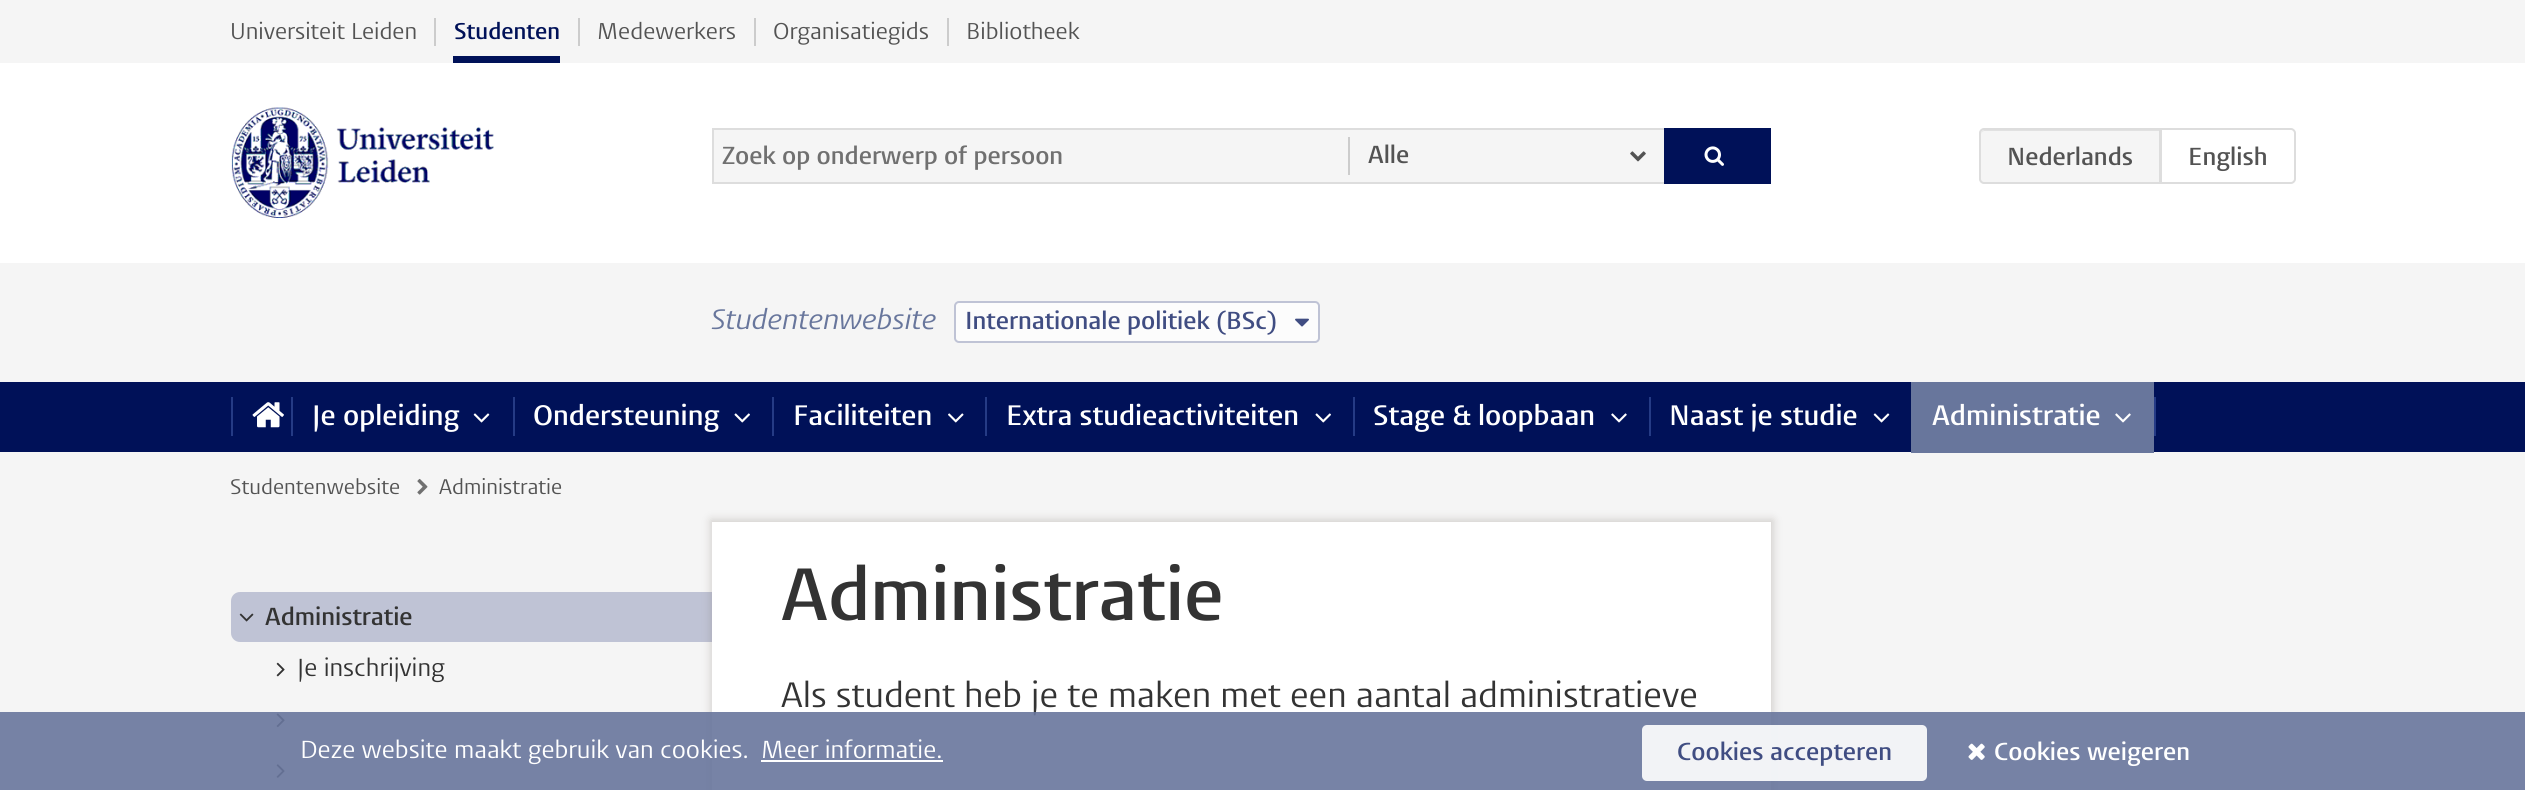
#include <cairo.h>
#include <math.h>
#include <stddef.h>

static cairo_t *ctx;

static void use_color(int r, int g, int b) {
    cairo_set_source_rgb(ctx, r / 255.0, g / 255.0, b / 255.0);
}

static void round_rect(double x, double y, double w, double h, double r) {
    cairo_new_sub_path(ctx);
    cairo_arc(ctx, x + w - r, y + h - r, r, 0, M_PI / 2);
    cairo_arc(ctx, x + r, y + h - r, r, M_PI / 2, M_PI);
    cairo_arc(ctx, x + r, y + r, r, M_PI, 1.5 * M_PI);
    cairo_arc(ctx, x + w - r, y + r, r, 1.5 * M_PI, 2 * M_PI);
    cairo_close_path(ctx);
}

static void shadow(double x, double y, double w, double h, double r, double blur, double alpha) {
    cairo_push_group_with_content(ctx, CAIRO_CONTENT_ALPHA);
    cairo_set_operator(ctx, CAIRO_OPERATOR_SOURCE);
    for (int i = 15; i >= -15 && fmin(w, h) + blur * i / 3 > 0; i -= 2) {
        double e = blur * i / 6;
        cairo_set_source_rgba(ctx, 0, 0, 0, alpha * erfc((i - 1) / 8.5) / 2);
        round_rect(x - e, y - e, w + 2 * e, h + 2 * e, fmax(0, fmin(r + e + blur * .6, fmin(w, h) / 2 + e)));
        cairo_fill(ctx);
    }
    cairo_pattern_t *soft = cairo_pop_group(ctx);
    cairo_mask(ctx, soft);
    cairo_pattern_destroy(soft);
}

static void picture(const char *path, double x, double y, double w, double h) {
    cairo_surface_t *image = cairo_image_surface_create_from_png(path);
    cairo_save(ctx);
    cairo_set_source_surface(ctx, image, x, y);
    cairo_rectangle(ctx, x, y, w, h);
    cairo_fill(ctx);
    cairo_restore(ctx);
    cairo_surface_destroy(image);
}

int main(void) {
    cairo_surface_t *surface = cairo_image_surface_create(CAIRO_FORMAT_RGB24, 2525, 790);
    ctx = cairo_create(surface);
    cairo_font_options_t *options = cairo_font_options_create();
    cairo_font_options_set_hint_metrics(options, CAIRO_HINT_METRICS_OFF);
    cairo_font_options_set_hint_style(options, CAIRO_HINT_STYLE_NONE);
    cairo_set_font_options(ctx, options);
    cairo_set_miter_limit(ctx, 4);
    use_color(245, 245, 245);
    cairo_paint(ctx);
    use_color(255, 255, 255);
    cairo_rectangle(ctx, 0, 63, 2525, 200);
    cairo_fill(ctx);
    use_color(204, 204, 204);
    cairo_rectangle(ctx, 434, 18, 2, 28);
    cairo_fill(ctx);
    cairo_select_font_face(ctx, "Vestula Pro", CAIRO_FONT_SLANT_NORMAL, CAIRO_FONT_WEIGHT_NORMAL);
    cairo_set_font_size(ctx, 22.75);
    use_color(83, 83, 83);
    cairo_move_to(ctx, 230, 39);
    cairo_show_text(ctx, "Universiteit Leiden");
    use_color(204, 204, 204);
    cairo_rectangle(ctx, 578, 18, 2, 28);
    cairo_fill(ctx);
    cairo_select_font_face(ctx, "Vestula Pro SemiBold", CAIRO_FONT_SLANT_NORMAL, CAIRO_FONT_WEIGHT_NORMAL);
    use_color(0, 17, 88);
    cairo_move_to(ctx, 454, 39);
    cairo_show_text(ctx, "Studenten");
    cairo_rectangle(ctx, 453, 56, 107, 7);
    cairo_fill(ctx);
    use_color(204, 204, 204);
    cairo_rectangle(ctx, 754, 18, 2, 28);
    cairo_fill(ctx);
    cairo_select_font_face(ctx, "Vestula Pro", CAIRO_FONT_SLANT_NORMAL, CAIRO_FONT_WEIGHT_NORMAL);
    use_color(83, 83, 83);
    cairo_move_to(ctx, 597, 39);
    cairo_show_text(ctx, "Medewerkers");
    use_color(204, 204, 204);
    cairo_rectangle(ctx, 947, 18, 2, 28);
    cairo_fill(ctx);
    use_color(83, 83, 83);
    cairo_move_to(ctx, 773, 39);
    cairo_show_text(ctx, "Organisatiegids");
    cairo_move_to(ctx, 966, 39);
    cairo_show_text(ctx, "Bibliotheek");
    picture("img1.png", 231, 107, 263, 111);
    use_color(245, 245, 245);
    cairo_rectangle(ctx, 714, 130, 950, 52);
    cairo_fill(ctx);
    use_color(221, 221, 221);
    cairo_rectangle(ctx, 712, 128, 952, 2);
    cairo_fill(ctx);
    cairo_rectangle(ctx, 712, 182, 952, 2);
    cairo_fill(ctx);
    cairo_rectangle(ctx, 712, 128, 2, 56);
    cairo_fill(ctx);
    cairo_select_font_face(ctx, "Vestula Pro SemiBold", CAIRO_FONT_SLANT_NORMAL, CAIRO_FONT_WEIGHT_NORMAL);
    cairo_set_font_size(ctx, 24.5);
    use_color(112, 112, 112);
    cairo_move_to(ctx, 722, 164);
    cairo_show_text(ctx, "Zoek op onderwerp of persoon");
    use_color(204, 204, 204);
    cairo_rectangle(ctx, 1348, 137, 2, 38);
    cairo_fill(ctx);
    use_color(83, 83, 83);
    cairo_move_to(ctx, 1368, 163);
    cairo_show_text(ctx, "Alle");
    picture("img2.png", 1630, 151, 16, 11);
    use_color(0, 17, 88);
    cairo_rectangle(ctx, 1664, 128, 107, 56);
    cairo_fill(ctx);
    picture("img3.png", 1704, 146, 20, 20);
    use_color(245, 245, 245);
    cairo_new_path(ctx);
    cairo_move_to(ctx, 1984, 128);
    cairo_line_to(ctx, 2161, 128);
    cairo_line_to(ctx, 2161, 184);
    cairo_line_to(ctx, 1984, 184);
    cairo_curve_to(ctx, 1981, 184, 1979, 182, 1979, 179);
    cairo_line_to(ctx, 1979, 133);
    cairo_curve_to(ctx, 1979, 130, 1981, 128, 1984, 128);
    cairo_close_path(ctx);
    cairo_fill(ctx);
    use_color(225, 225, 225);
    cairo_new_path(ctx);
    cairo_move_to(ctx, 1984, 131);
    cairo_line_to(ctx, 2160, 131);
    cairo_line_to(ctx, 2160, 130);
    cairo_line_to(ctx, 1984, 130);
    cairo_curve_to(ctx, 1982, 131, 1981, 133, 1981, 135);
    cairo_curve_to(ctx, 1981, 133, 1983, 131, 1984, 131);
    cairo_close_path(ctx);
    cairo_fill(ctx);
    cairo_new_path(ctx);
    cairo_move_to(ctx, 1984, 129);
    cairo_line_to(ctx, 2160, 129);
    cairo_line_to(ctx, 2160, 183);
    cairo_line_to(ctx, 1984, 183);
    cairo_curve_to(ctx, 1982, 183, 1980, 181, 1980, 179);
    cairo_line_to(ctx, 1980, 133);
    cairo_curve_to(ctx, 1980, 131, 1982, 129, 1984, 129);
    cairo_close_path(ctx);
    use_color(221, 221, 221);
    cairo_stroke(ctx);
    use_color(83, 83, 83);
    cairo_move_to(ctx, 2007, 165);
    cairo_show_text(ctx, "Nederlands");
    use_color(255, 255, 255);
    cairo_new_path(ctx);
    cairo_move_to(ctx, 2161, 129);
    cairo_line_to(ctx, 2291, 129);
    cairo_curve_to(ctx, 2293, 129, 2295, 131, 2295, 133);
    cairo_line_to(ctx, 2295, 179);
    cairo_curve_to(ctx, 2295, 181, 2293, 183, 2291, 183);
    cairo_line_to(ctx, 2161, 183);
    cairo_close_path(ctx);
    cairo_fill_preserve(ctx);
    use_color(221, 221, 221);
    cairo_stroke(ctx);
    use_color(83, 83, 83);
    cairo_move_to(ctx, 2188, 165);
    cairo_show_text(ctx, "English");
    cairo_select_font_face(ctx, "Vestula Pro", CAIRO_FONT_SLANT_ITALIC, CAIRO_FONT_WEIGHT_NORMAL);
    cairo_set_font_size(ctx, 28);
    use_color(104, 118, 156);
    cairo_move_to(ctx, 711, 329);
    cairo_show_text(ctx, "Studentenwebsite");
    use_color(252, 252, 252);
    round_rect(955, 302, 364, 40, 4);
    cairo_fill_preserve(ctx);
    use_color(191, 195, 213);
    cairo_stroke(ctx);
    cairo_select_font_face(ctx, "Vestula Pro SemiBold", CAIRO_FONT_SLANT_NORMAL, CAIRO_FONT_WEIGHT_NORMAL);
    cairo_set_font_size(ctx, 24.5);
    use_color(64, 77, 130);
    cairo_move_to(ctx, 965, 329);
    cairo_show_text(ctx, "Internationale politiek (BSc)");
    picture("img4.png", 1295, 318, 14, 9);
    use_color(0, 17, 88);
    cairo_rectangle(ctx, 0, 382, 2525, 70);
    cairo_fill(ctx);
    use_color(37, 59, 133);
    cairo_rectangle(ctx, 231, 397, 2, 39);
    cairo_fill(ctx);
    picture("img5.png", 252, 402, 32, 26);
    cairo_rectangle(ctx, 291, 397, 2, 39);
    cairo_fill(ctx);
    cairo_set_font_size(ctx, 28);
    use_color(255, 255, 255);
    cairo_move_to(ctx, 312, 425);
    cairo_show_text(ctx, "Je opleiding");
    picture("img6.png", 473, 413, 17, 10);
    use_color(37, 59, 133);
    cairo_rectangle(ctx, 513, 397, 2, 39);
    cairo_fill(ctx);
    use_color(255, 255, 255);
    cairo_move_to(ctx, 533, 425);
    cairo_show_text(ctx, "Ondersteuning");
    picture("img7.png", 734, 413, 16, 10);
    use_color(37, 59, 133);
    cairo_rectangle(ctx, 772, 397, 2, 39);
    cairo_fill(ctx);
    use_color(255, 255, 255);
    cairo_move_to(ctx, 793, 425);
    cairo_show_text(ctx, "Faciliteiten");
    picture("img8.png", 948, 413, 16, 10);
    use_color(37, 59, 133);
    cairo_rectangle(ctx, 985, 397, 2, 39);
    cairo_fill(ctx);
    use_color(255, 255, 255);
    cairo_move_to(ctx, 1006, 425);
    cairo_show_text(ctx, "Extra studieactiviteiten");
    picture("img7.png", 1315, 413, 16, 10);
    use_color(37, 59, 133);
    cairo_rectangle(ctx, 1353, 397, 2, 39);
    cairo_fill(ctx);
    use_color(255, 255, 255);
    cairo_move_to(ctx, 1373, 425);
    cairo_show_text(ctx, "Stage & loopbaan");
    picture("img9.png", 1611, 413, 16, 10);
    use_color(37, 59, 133);
    cairo_rectangle(ctx, 1649, 397, 2, 39);
    cairo_fill(ctx);
    use_color(255, 255, 255);
    cairo_move_to(ctx, 1669, 425);
    cairo_show_text(ctx, "Naast je studie");
    picture("img6.png", 1873, 413, 17, 10);
    use_color(37, 59, 133);
    cairo_rectangle(ctx, 2154, 397, 2, 39);
    cairo_fill(ctx);
    use_color(104, 118, 156);
    cairo_rectangle(ctx, 1911, 382, 243, 71);
    cairo_fill(ctx);
    picture("img10.png", 2115, 413, 16, 10);
    use_color(255, 255, 255);
    cairo_move_to(ctx, 1932, 425);
    cairo_show_text(ctx, "Administratie");
    cairo_select_font_face(ctx, "Vestula Pro", CAIRO_FONT_SLANT_NORMAL, CAIRO_FONT_WEIGHT_NORMAL);
    cairo_set_font_size(ctx, 21);
    use_color(83, 83, 83);
    cairo_move_to(ctx, 230, 494);
    cairo_show_text(ctx, "Studentenwebsite");
    picture("img11.png", 417, 478, 11, 17);
    cairo_move_to(ctx, 439, 494);
    cairo_show_text(ctx, "Administratie");
    use_color(191, 195, 213);
    cairo_new_path(ctx);
    cairo_move_to(ctx, 240, 592);
    cairo_line_to(ctx, 712, 592);
    cairo_line_to(ctx, 712, 642);
    cairo_line_to(ctx, 240, 642);
    cairo_curve_to(ctx, 235, 642, 231, 638, 231, 633);
    cairo_line_to(ctx, 231, 601);
    cairo_curve_to(ctx, 231, 596, 235, 592, 240, 592);
    cairo_close_path(ctx);
    cairo_fill(ctx);
    picture("img12.png", 239, 613, 15, 9);
    cairo_select_font_face(ctx, "Vestula Pro SemiBold", CAIRO_FONT_SLANT_NORMAL, CAIRO_FONT_WEIGHT_NORMAL);
    cairo_set_font_size(ctx, 24.5);
    use_color(51, 51, 51);
    cairo_move_to(ctx, 265, 625);
    cairo_show_text(ctx, "Administratie");
    picture("img13.png", 276, 662, 9, 15);
    cairo_select_font_face(ctx, "Vestula Pro", CAIRO_FONT_SLANT_NORMAL, CAIRO_FONT_WEIGHT_NORMAL);
    cairo_move_to(ctx, 297, 676);
    cairo_show_text(ctx, "Je inschrijving");
    picture("img14.png", 276, 713, 9, 15);
    picture("img15.png", 276, 764, 9, 14);
    use_color(120, 110, 100);
    shadow(711, 520, 1062, 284, 0, 4.5, 0.3);
    use_color(255, 255, 255);
    cairo_rectangle(ctx, 712, 522, 1059, 268);
    cairo_fill(ctx);
    cairo_select_font_face(ctx, "Vestula Pro SemiBold", CAIRO_FONT_SLANT_NORMAL, CAIRO_FONT_WEIGHT_NORMAL);
    cairo_set_font_size(ctx, 73.5);
    use_color(51, 51, 51);
    cairo_move_to(ctx, 781, 620);
    cairo_show_text(ctx, "Administratie");
    cairo_select_font_face(ctx, "Vestula Pro", CAIRO_FONT_SLANT_NORMAL, CAIRO_FONT_WEIGHT_NORMAL);
    cairo_set_font_size(ctx, 35);
    cairo_move_to(ctx, 781, 707);
    cairo_show_text(ctx, "Als student heb je te maken met een aantal administratieve");
    cairo_set_source_rgba(ctx, 0.408, 0.463, 0.612, 0.9);
    cairo_rectangle(ctx, 0, 712, 2525, 78);
    cairo_fill(ctx);
    cairo_set_font_size(ctx, 24.5);
    use_color(255, 255, 255);
    cairo_move_to(ctx, 300, 758);
    cairo_show_text(ctx, "Deze website maakt gebruik van cookies.");
    cairo_move_to(ctx, 761, 758);
    cairo_show_text(ctx, "Meer informatie.");
    cairo_rectangle(ctx, 761, 760, 182, 2);
    cairo_fill(ctx);
    cairo_set_source_rgba(ctx, 1, 1, 1, 0.9);
    round_rect(1642, 725, 285, 56, 5);
    cairo_fill(ctx);
    cairo_select_font_face(ctx, "Vestula Pro SemiBold", CAIRO_FONT_SLANT_NORMAL, CAIRO_FONT_WEIGHT_NORMAL);
    use_color(64, 77, 130);
    cairo_move_to(ctx, 1677, 760);
    cairo_show_text(ctx, "Cookies accepteren");
    picture("img16.png", 1968, 743, 17, 17);
    use_color(255, 255, 255);
    cairo_move_to(ctx, 1994, 760);
    cairo_show_text(ctx, "Cookies weigeren");
    cairo_surface_write_to_png(surface, "result.png");
    cairo_font_options_destroy(options);
    cairo_destroy(ctx);
    cairo_surface_destroy(surface);
    return 0;
}
